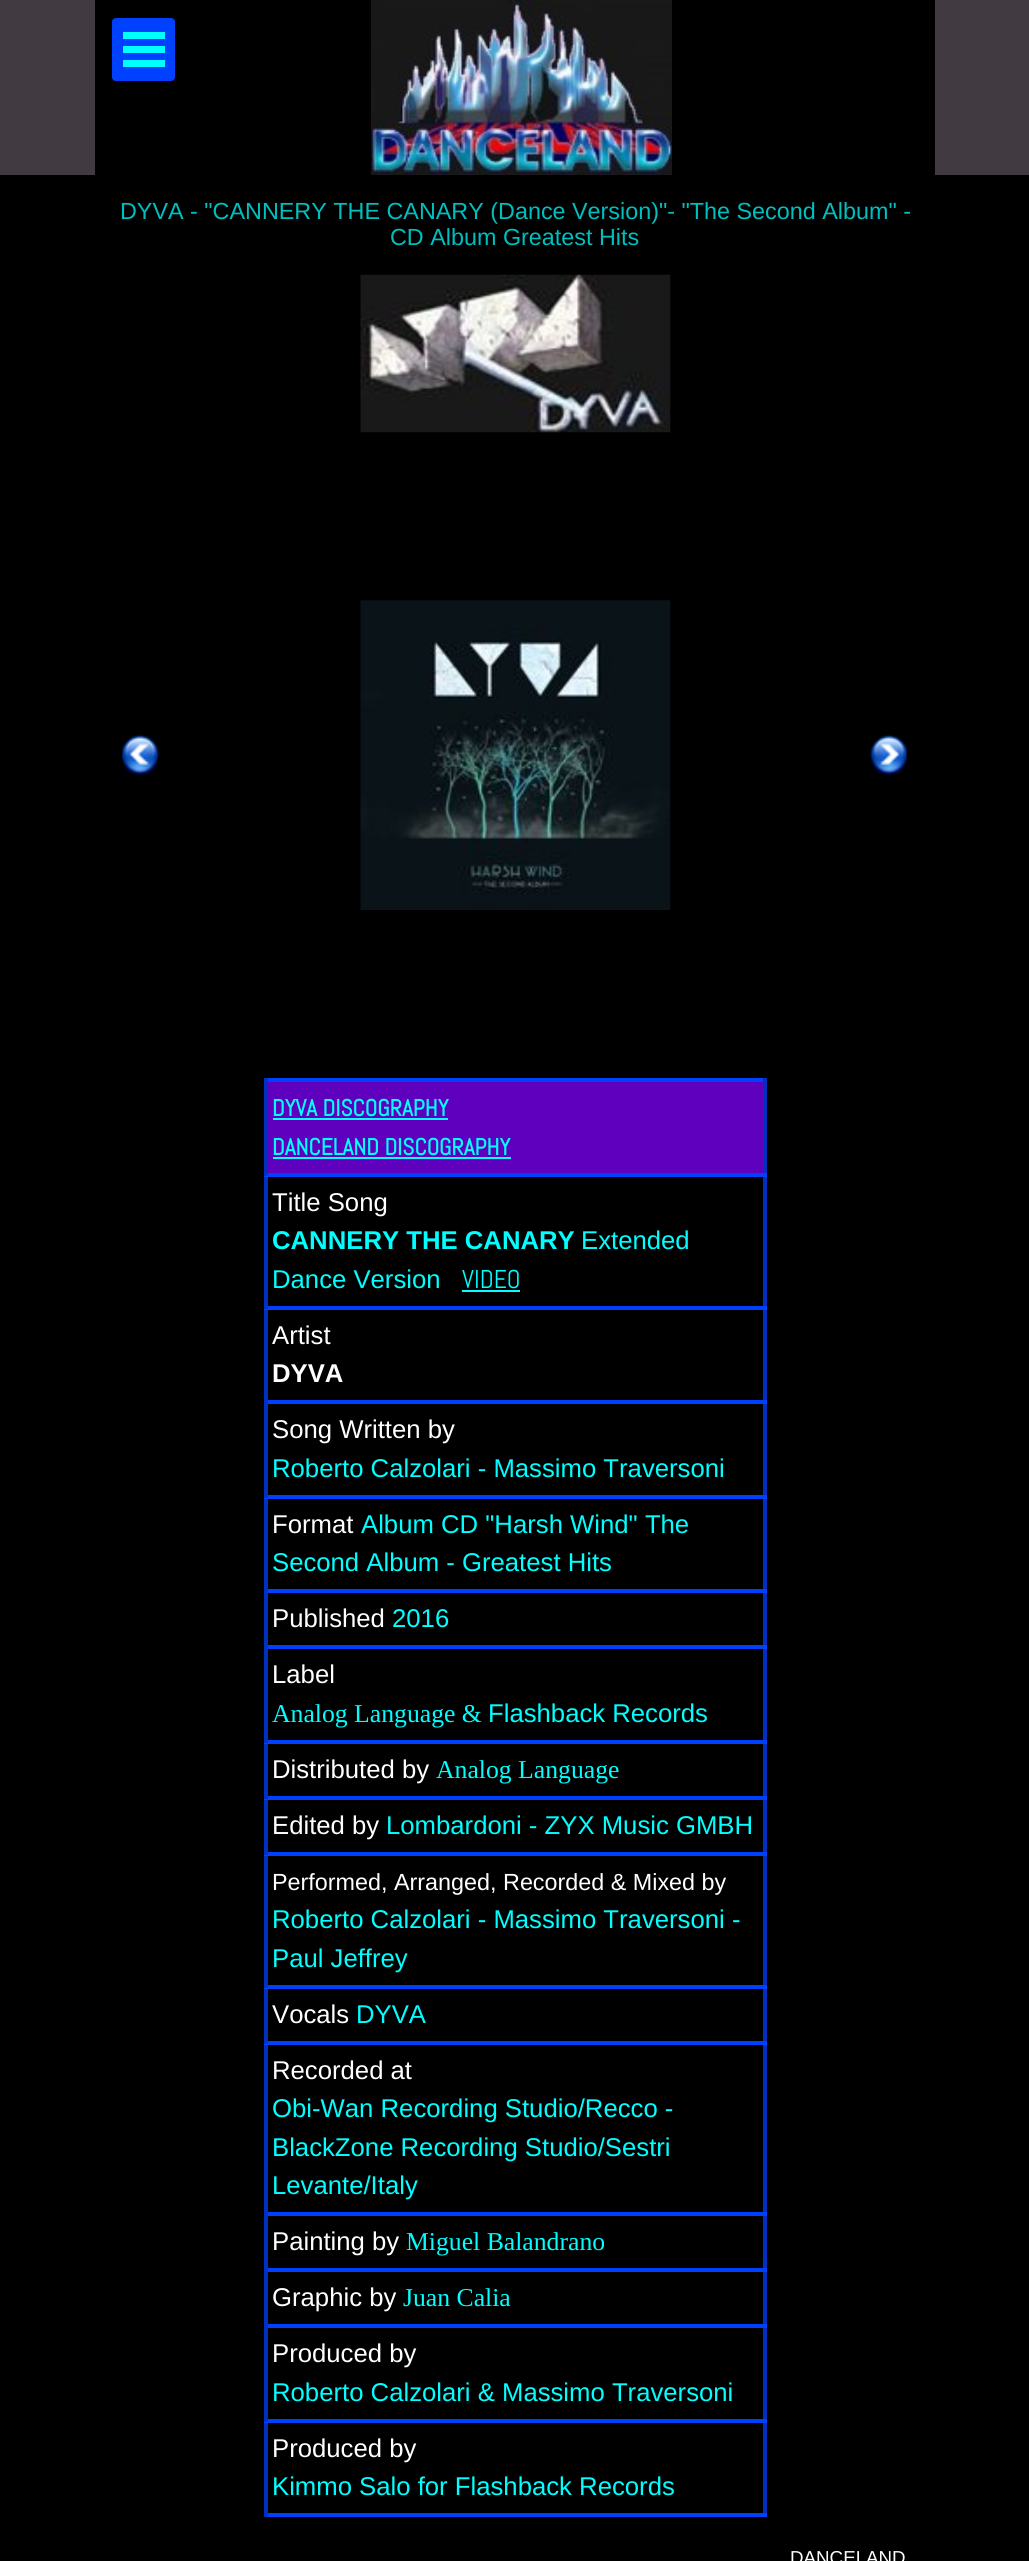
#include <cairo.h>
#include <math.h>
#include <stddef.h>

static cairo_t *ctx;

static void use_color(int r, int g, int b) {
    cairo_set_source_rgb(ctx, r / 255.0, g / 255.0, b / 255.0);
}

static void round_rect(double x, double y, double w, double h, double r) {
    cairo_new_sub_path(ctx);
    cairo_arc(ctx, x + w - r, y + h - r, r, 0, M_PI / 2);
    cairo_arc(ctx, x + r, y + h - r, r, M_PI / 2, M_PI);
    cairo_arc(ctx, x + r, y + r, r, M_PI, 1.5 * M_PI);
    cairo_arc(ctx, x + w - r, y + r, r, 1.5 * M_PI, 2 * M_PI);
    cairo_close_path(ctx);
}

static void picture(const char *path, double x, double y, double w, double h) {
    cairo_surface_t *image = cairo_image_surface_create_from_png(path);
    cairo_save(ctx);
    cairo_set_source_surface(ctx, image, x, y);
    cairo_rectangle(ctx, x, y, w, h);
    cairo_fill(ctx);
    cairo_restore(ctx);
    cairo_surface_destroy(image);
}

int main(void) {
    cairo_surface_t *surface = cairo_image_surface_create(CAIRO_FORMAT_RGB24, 1029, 2561);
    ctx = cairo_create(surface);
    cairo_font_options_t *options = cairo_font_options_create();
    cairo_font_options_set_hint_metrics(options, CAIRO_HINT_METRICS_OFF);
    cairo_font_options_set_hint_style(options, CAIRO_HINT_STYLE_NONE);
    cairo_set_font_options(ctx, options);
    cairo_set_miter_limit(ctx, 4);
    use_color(0, 0, 0);
    cairo_paint(ctx);
    use_color(65, 58, 65);
    cairo_rectangle(ctx, 0, 0, 1029, 175);
    cairo_fill(ctx);
    use_color(0, 0, 0);
    cairo_rectangle(ctx, 95, 0, 840, 175);
    cairo_fill(ctx);
    use_color(0, 64, 255);
    round_rect(112, 18, 63, 63, 4);
    cairo_fill(ctx);
    use_color(0, 255, 255);
    cairo_rectangle(ctx, 123, 32, 42, 7);
    cairo_fill(ctx);
    cairo_rectangle(ctx, 123, 46, 42, 7);
    cairo_fill(ctx);
    cairo_rectangle(ctx, 123, 60, 42, 7);
    cairo_fill(ctx);
    picture("img1.png", 371, 0, 301, 175);
    cairo_select_font_face(ctx, "Liberation Sans", CAIRO_FONT_SLANT_NORMAL, CAIRO_FONT_WEIGHT_NORMAL);
    cairo_set_font_size(ctx, 23.35);
    use_color(0, 191, 191);
    cairo_move_to(ctx, 120, 219);
    cairo_show_text(ctx, "DYVA - \"CANNERY THE CANARY (Dance Version)\"- \"The Second Album\" -");
    cairo_move_to(ctx, 390, 245);
    cairo_show_text(ctx, "CD Album Greatest Hits");
    picture("img2.png", 360, 274, 311, 159);
    picture("img3.png", 122, 734, 38, 43);
    picture("img4.png", 360, 600, 311, 310);
    picture("img5.png", 869, 734, 38, 43);
    use_color(96, 0, 191);
    cairo_rectangle(ctx, 268, 1082, 495, 91);
    cairo_fill(ctx);
    use_color(0, 64, 255);
    cairo_rectangle(ctx, 264, 1078, 503, 4);
    cairo_fill(ctx);
    use_color(0, 48, 191);
    cairo_rectangle(ctx, 763, 1173, 4, 1344);
    cairo_fill(ctx);
    cairo_rectangle(ctx, 763, 1078, 4, 98);
    cairo_fill(ctx);
    use_color(0, 64, 255);
    cairo_rectangle(ctx, 264, 2513, 503, 4);
    cairo_fill(ctx);
    use_color(0, 48, 191);
    cairo_rectangle(ctx, 264, 2419, 4, 98);
    cairo_fill(ctx);
    use_color(0, 64, 255);
    cairo_rectangle(ctx, 264, 2419, 503, 4);
    cairo_fill(ctx);
    use_color(0, 48, 191);
    cairo_rectangle(ctx, 264, 2324, 4, 98);
    cairo_fill(ctx);
    use_color(0, 64, 255);
    cairo_rectangle(ctx, 264, 2324, 503, 4);
    cairo_fill(ctx);
    use_color(0, 48, 191);
    cairo_rectangle(ctx, 264, 2268, 4, 60);
    cairo_fill(ctx);
    use_color(0, 64, 255);
    cairo_rectangle(ctx, 264, 2268, 503, 4);
    cairo_fill(ctx);
    use_color(0, 48, 191);
    cairo_rectangle(ctx, 264, 2212, 4, 60);
    cairo_fill(ctx);
    use_color(0, 64, 255);
    cairo_rectangle(ctx, 264, 2212, 503, 4);
    cairo_fill(ctx);
    use_color(0, 48, 191);
    cairo_rectangle(ctx, 264, 2041, 4, 175);
    cairo_fill(ctx);
    use_color(0, 64, 255);
    cairo_rectangle(ctx, 264, 2041, 503, 4);
    cairo_fill(ctx);
    use_color(0, 48, 191);
    cairo_rectangle(ctx, 264, 1985, 4, 59);
    cairo_fill(ctx);
    use_color(0, 64, 255);
    cairo_rectangle(ctx, 264, 1985, 503, 4);
    cairo_fill(ctx);
    use_color(0, 48, 191);
    cairo_rectangle(ctx, 264, 1852, 4, 136);
    cairo_fill(ctx);
    use_color(0, 64, 255);
    cairo_rectangle(ctx, 264, 1852, 503, 4);
    cairo_fill(ctx);
    use_color(0, 48, 191);
    cairo_rectangle(ctx, 264, 1796, 4, 59);
    cairo_fill(ctx);
    use_color(0, 64, 255);
    cairo_rectangle(ctx, 264, 1796, 503, 4);
    cairo_fill(ctx);
    use_color(0, 48, 191);
    cairo_rectangle(ctx, 264, 1740, 4, 59);
    cairo_fill(ctx);
    use_color(0, 64, 255);
    cairo_rectangle(ctx, 264, 1740, 503, 4);
    cairo_fill(ctx);
    use_color(0, 48, 191);
    cairo_rectangle(ctx, 264, 1645, 4, 98);
    cairo_fill(ctx);
    use_color(0, 64, 255);
    cairo_rectangle(ctx, 264, 1645, 503, 4);
    cairo_fill(ctx);
    use_color(0, 48, 191);
    cairo_rectangle(ctx, 264, 1589, 4, 60);
    cairo_fill(ctx);
    use_color(0, 64, 255);
    cairo_rectangle(ctx, 264, 1589, 503, 4);
    cairo_fill(ctx);
    use_color(0, 48, 191);
    cairo_rectangle(ctx, 264, 1495, 4, 98);
    cairo_fill(ctx);
    use_color(0, 64, 255);
    cairo_rectangle(ctx, 264, 1495, 503, 4);
    cairo_fill(ctx);
    use_color(0, 48, 191);
    cairo_rectangle(ctx, 264, 1400, 4, 98);
    cairo_fill(ctx);
    use_color(0, 64, 255);
    cairo_rectangle(ctx, 264, 1400, 503, 4);
    cairo_fill(ctx);
    use_color(0, 48, 191);
    cairo_rectangle(ctx, 264, 1306, 4, 98);
    cairo_fill(ctx);
    use_color(0, 64, 255);
    cairo_rectangle(ctx, 264, 1306, 503, 4);
    cairo_fill(ctx);
    use_color(0, 48, 191);
    cairo_rectangle(ctx, 264, 1173, 4, 136);
    cairo_fill(ctx);
    use_color(0, 64, 255);
    cairo_rectangle(ctx, 264, 1173, 503, 4);
    cairo_fill(ctx);
    use_color(0, 48, 191);
    cairo_rectangle(ctx, 264, 1078, 4, 98);
    cairo_fill(ctx);
    cairo_select_font_face(ctx, "Abel", CAIRO_FONT_SLANT_NORMAL, CAIRO_FONT_WEIGHT_BOLD);
    use_color(0, 255, 255);
    cairo_move_to(ctx, 272, 1116);
    cairo_show_text(ctx, "DYVA DISCOGRAPHY");
    cairo_rectangle(ctx, 273, 1118, 175, 2);
    cairo_fill(ctx);
    cairo_move_to(ctx, 272, 1155);
    cairo_show_text(ctx, "DANCELAND DISCOGRAPHY");
    cairo_rectangle(ctx, 273, 1157, 238, 2);
    cairo_fill(ctx);
    cairo_select_font_face(ctx, "Liberation Sans", CAIRO_FONT_SLANT_NORMAL, CAIRO_FONT_WEIGHT_NORMAL);
    cairo_set_font_size(ctx, 25.7);
    use_color(255, 255, 255);
    cairo_move_to(ctx, 272, 1211);
    cairo_show_text(ctx, "Title Song");
    cairo_select_font_face(ctx, "Liberation Sans", CAIRO_FONT_SLANT_NORMAL, CAIRO_FONT_WEIGHT_BOLD);
    use_color(0, 255, 255);
    cairo_move_to(ctx, 272, 1249);
    cairo_show_text(ctx, "CANNERY THE CANARY");
    cairo_select_font_face(ctx, "Liberation Sans", CAIRO_FONT_SLANT_NORMAL, CAIRO_FONT_WEIGHT_NORMAL);
    cairo_move_to(ctx, 581, 1249);
    cairo_show_text(ctx, "Extended");
    cairo_move_to(ctx, 272, 1288);
    cairo_show_text(ctx, "Dance Version");
    cairo_select_font_face(ctx, "Abel", CAIRO_FONT_SLANT_NORMAL, CAIRO_FONT_WEIGHT_NORMAL);
    cairo_move_to(ctx, 462, 1288);
    cairo_show_text(ctx, "VIDEO");
    cairo_rectangle(ctx, 462, 1290, 58, 2);
    cairo_fill(ctx);
    cairo_select_font_face(ctx, "Liberation Sans", CAIRO_FONT_SLANT_NORMAL, CAIRO_FONT_WEIGHT_NORMAL);
    use_color(255, 255, 255);
    cairo_move_to(ctx, 272, 1344);
    cairo_show_text(ctx, "Artist");
    cairo_select_font_face(ctx, "Liberation Sans", CAIRO_FONT_SLANT_NORMAL, CAIRO_FONT_WEIGHT_BOLD);
    cairo_move_to(ctx, 272, 1382);
    cairo_show_text(ctx, "DYVA");
    cairo_select_font_face(ctx, "Liberation Sans", CAIRO_FONT_SLANT_NORMAL, CAIRO_FONT_WEIGHT_NORMAL);
    cairo_move_to(ctx, 272, 1438);
    cairo_show_text(ctx, "Song Written by");
    use_color(0, 255, 255);
    cairo_move_to(ctx, 272, 1477);
    cairo_show_text(ctx, "Roberto Calzolari - Massimo Traversoni");
    use_color(255, 255, 255);
    cairo_move_to(ctx, 272, 1533);
    cairo_show_text(ctx, "Format");
    use_color(0, 255, 255);
    cairo_move_to(ctx, 361, 1533);
    cairo_show_text(ctx, "Album CD \"Harsh Wind\" The");
    cairo_move_to(ctx, 272, 1571);
    cairo_show_text(ctx, "Second Album - Greatest Hits");
    use_color(255, 255, 255);
    cairo_move_to(ctx, 272, 1627);
    cairo_show_text(ctx, "Published");
    use_color(0, 255, 255);
    cairo_move_to(ctx, 392, 1627);
    cairo_show_text(ctx, "2016");
    use_color(255, 255, 255);
    cairo_move_to(ctx, 272, 1683);
    cairo_show_text(ctx, "Label");
    cairo_select_font_face(ctx, "Liberation Serif", CAIRO_FONT_SLANT_NORMAL, CAIRO_FONT_WEIGHT_NORMAL);
    use_color(0, 255, 255);
    cairo_move_to(ctx, 272, 1722);
    cairo_show_text(ctx, "Analog Language &");
    cairo_select_font_face(ctx, "Liberation Sans", CAIRO_FONT_SLANT_NORMAL, CAIRO_FONT_WEIGHT_NORMAL);
    cairo_move_to(ctx, 488, 1722);
    cairo_show_text(ctx, "Flashback Records");
    use_color(255, 255, 255);
    cairo_move_to(ctx, 272, 1778);
    cairo_show_text(ctx, "Distributed by");
    cairo_select_font_face(ctx, "Liberation Serif", CAIRO_FONT_SLANT_NORMAL, CAIRO_FONT_WEIGHT_NORMAL);
    use_color(0, 255, 255);
    cairo_move_to(ctx, 436, 1778);
    cairo_show_text(ctx, "Analog Language");
    cairo_select_font_face(ctx, "Liberation Sans", CAIRO_FONT_SLANT_NORMAL, CAIRO_FONT_WEIGHT_NORMAL);
    use_color(255, 255, 255);
    cairo_move_to(ctx, 272, 1834);
    cairo_show_text(ctx, "Edited by");
    use_color(0, 255, 255);
    cairo_move_to(ctx, 386, 1834);
    cairo_show_text(ctx, "Lombardoni - ZYX Music GMBH");
    cairo_set_font_size(ctx, 23.35);
    use_color(255, 255, 255);
    cairo_move_to(ctx, 272, 1890);
    cairo_show_text(ctx, "Performed, Arranged, Recorded & Mixed by");
    cairo_set_font_size(ctx, 25.7);
    use_color(0, 255, 255);
    cairo_move_to(ctx, 272, 1928);
    cairo_show_text(ctx, "Roberto Calzolari - Massimo Traversoni -");
    cairo_move_to(ctx, 272, 1967);
    cairo_show_text(ctx, "Paul Jeffrey");
    use_color(255, 255, 255);
    cairo_move_to(ctx, 272, 2023);
    cairo_show_text(ctx, "Vocals");
    use_color(0, 255, 255);
    cairo_move_to(ctx, 356, 2023);
    cairo_show_text(ctx, "DYVA");
    use_color(255, 255, 255);
    cairo_move_to(ctx, 272, 2079);
    cairo_show_text(ctx, "Recorded at");
    use_color(0, 255, 255);
    cairo_move_to(ctx, 272, 2117);
    cairo_show_text(ctx, "Obi-Wan Recording Studio/Recco -");
    cairo_move_to(ctx, 272, 2156);
    cairo_show_text(ctx, "BlackZone Recording Studio/Sestri");
    cairo_move_to(ctx, 272, 2194);
    cairo_show_text(ctx, "Levante/Italy");
    use_color(255, 255, 255);
    cairo_move_to(ctx, 272, 2250);
    cairo_show_text(ctx, "Painting by");
    cairo_select_font_face(ctx, "Liberation Serif", CAIRO_FONT_SLANT_NORMAL, CAIRO_FONT_WEIGHT_NORMAL);
    use_color(0, 255, 255);
    cairo_move_to(ctx, 406, 2250);
    cairo_show_text(ctx, "Miguel Balandrano");
    cairo_select_font_face(ctx, "Liberation Sans", CAIRO_FONT_SLANT_NORMAL, CAIRO_FONT_WEIGHT_NORMAL);
    use_color(255, 255, 255);
    cairo_move_to(ctx, 272, 2306);
    cairo_show_text(ctx, "Graphic by");
    cairo_select_font_face(ctx, "Liberation Serif", CAIRO_FONT_SLANT_NORMAL, CAIRO_FONT_WEIGHT_NORMAL);
    use_color(0, 255, 255);
    cairo_move_to(ctx, 403, 2306);
    cairo_show_text(ctx, "Juan Calia");
    cairo_select_font_face(ctx, "Liberation Sans", CAIRO_FONT_SLANT_NORMAL, CAIRO_FONT_WEIGHT_NORMAL);
    use_color(255, 255, 255);
    cairo_move_to(ctx, 272, 2362);
    cairo_show_text(ctx, "Produced by");
    use_color(0, 255, 255);
    cairo_move_to(ctx, 272, 2401);
    cairo_show_text(ctx, "Roberto Calzolari & Massimo Traversoni");
    use_color(255, 255, 255);
    cairo_move_to(ctx, 272, 2457);
    cairo_show_text(ctx, "Produced by");
    use_color(0, 255, 255);
    cairo_move_to(ctx, 272, 2495);
    cairo_show_text(ctx, "Kimmo Salo for Flashback Records");
    cairo_set_font_size(ctx, 18.75);
    use_color(255, 255, 255);
    cairo_move_to(ctx, 790, 2564);
    cairo_show_text(ctx, "DANCELAND");
    cairo_surface_write_to_png(surface, "result.png");
    cairo_font_options_destroy(options);
    cairo_destroy(ctx);
    cairo_surface_destroy(surface);
    return 0;
}
